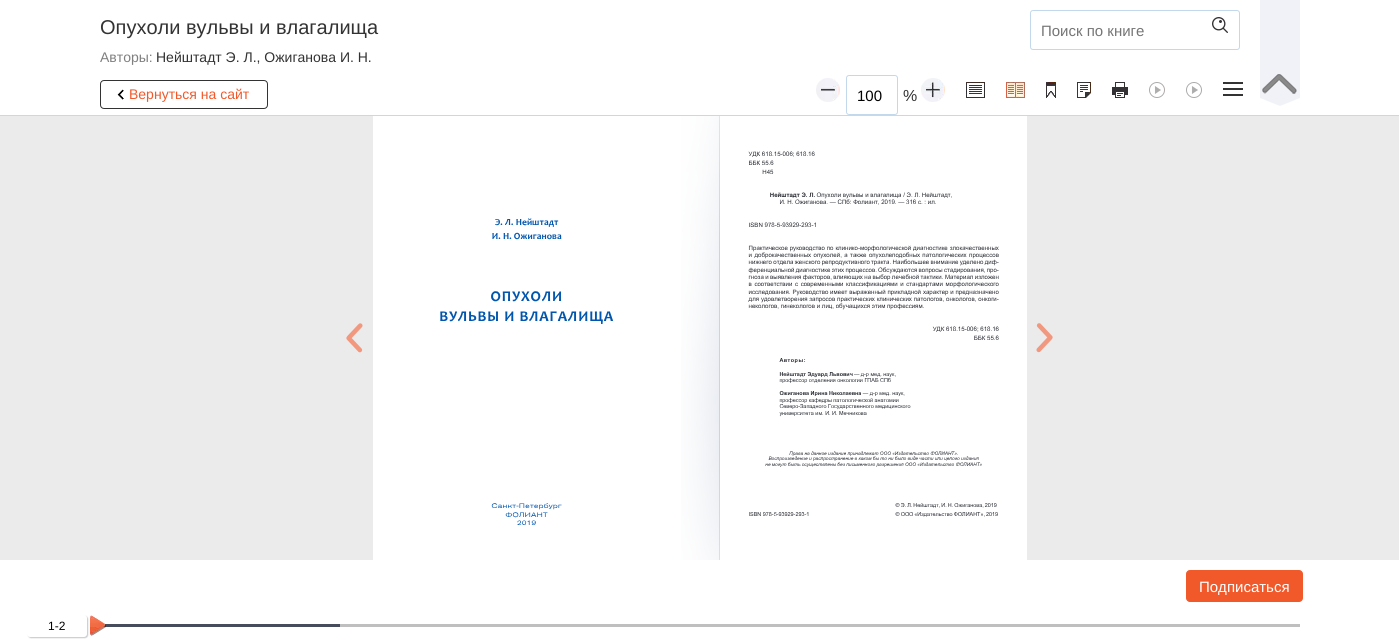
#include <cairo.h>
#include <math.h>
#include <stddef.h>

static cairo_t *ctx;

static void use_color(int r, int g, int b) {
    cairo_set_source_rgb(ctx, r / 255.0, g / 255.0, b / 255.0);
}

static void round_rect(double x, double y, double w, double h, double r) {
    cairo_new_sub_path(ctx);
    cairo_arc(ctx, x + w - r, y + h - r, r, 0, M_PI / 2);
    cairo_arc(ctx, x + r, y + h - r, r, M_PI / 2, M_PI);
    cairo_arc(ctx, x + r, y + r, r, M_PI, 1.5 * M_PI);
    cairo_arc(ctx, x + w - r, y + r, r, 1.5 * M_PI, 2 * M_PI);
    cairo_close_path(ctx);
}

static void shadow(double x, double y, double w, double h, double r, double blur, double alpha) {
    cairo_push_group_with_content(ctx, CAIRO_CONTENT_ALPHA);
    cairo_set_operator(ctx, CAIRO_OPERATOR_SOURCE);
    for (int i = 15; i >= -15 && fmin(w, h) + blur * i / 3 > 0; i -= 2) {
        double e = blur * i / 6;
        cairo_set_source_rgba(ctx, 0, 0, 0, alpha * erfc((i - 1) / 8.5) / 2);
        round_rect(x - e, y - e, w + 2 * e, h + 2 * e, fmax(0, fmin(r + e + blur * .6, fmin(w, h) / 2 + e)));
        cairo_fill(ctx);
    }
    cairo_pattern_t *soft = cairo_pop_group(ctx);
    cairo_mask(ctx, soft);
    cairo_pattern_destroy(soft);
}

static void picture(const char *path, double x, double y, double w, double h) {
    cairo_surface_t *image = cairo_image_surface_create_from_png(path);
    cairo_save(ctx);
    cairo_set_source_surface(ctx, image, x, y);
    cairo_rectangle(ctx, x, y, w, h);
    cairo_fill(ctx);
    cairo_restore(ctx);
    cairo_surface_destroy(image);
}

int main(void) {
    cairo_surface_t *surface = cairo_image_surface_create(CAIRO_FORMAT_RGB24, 1399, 642);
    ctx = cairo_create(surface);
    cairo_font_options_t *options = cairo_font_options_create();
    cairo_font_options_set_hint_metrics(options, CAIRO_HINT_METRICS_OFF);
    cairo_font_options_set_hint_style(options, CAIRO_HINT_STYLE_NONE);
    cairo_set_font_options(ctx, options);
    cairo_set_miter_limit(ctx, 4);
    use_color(255, 255, 255);
    cairo_paint(ctx);
    use_color(209, 213, 225);
    cairo_rectangle(ctx, 0, 115, 1399, 1);
    cairo_fill(ctx);
    cairo_select_font_face(ctx, "Liberation Sans", CAIRO_FONT_SLANT_NORMAL, CAIRO_FONT_WEIGHT_NORMAL);
    cairo_set_font_size(ctx, 20);
    use_color(51, 51, 51);
    cairo_move_to(ctx, 100, 34);
    cairo_show_text(ctx, "Опухоли вульвы и влагалища");
    cairo_set_font_size(ctx, 14);
    use_color(128, 128, 128);
    cairo_move_to(ctx, 100, 62);
    cairo_show_text(ctx, "Авторы:");
    use_color(51, 51, 51);
    cairo_move_to(ctx, 156, 62);
    cairo_show_text(ctx, "Нейштадт Э. Л., Ожиганова И. Н.");
    round_rect(100.5, 80.5, 167, 28, 3.5);
    cairo_set_line_width(ctx, 1);
    cairo_stroke(ctx);
    picture("img1.png", 117, 89, 7, 11);
    use_color(241, 89, 42);
    cairo_move_to(ctx, 129, 99);
    cairo_show_text(ctx, "Вернуться на сайт");
    round_rect(1030.5, 10.5, 209, 39, 2.5);
    use_color(196, 216, 235);
    cairo_stroke(ctx);
    cairo_set_font_size(ctx, 15);
    use_color(117, 117, 117);
    cairo_move_to(ctx, 1041, 36);
    cairo_show_text(ctx, "Поиск по книге");
    picture("img2.png", 1212, 17, 16, 16);
    use_color(240, 242, 247);
    cairo_rectangle(ctx, 1260, 0, 40, 106);
    cairo_fill(ctx);
    picture("img3.png", 1262, 74, 35, 20);
    use_color(255, 255, 255);
    cairo_new_path(ctx);
    cairo_move_to(ctx, 1300, 98);
    cairo_line_to(ctx, 1300, 114);
    cairo_line_to(ctx, 1280, 106);
    cairo_close_path(ctx);
    cairo_move_to(ctx, 1260, 114);
    cairo_line_to(ctx, 1260, 98);
    cairo_line_to(ctx, 1280, 106);
    cairo_close_path(ctx);
    cairo_fill(ctx);
    picture("img4.png", 816, 78, 24, 24);
    round_rect(846.5, 75.5, 51, 39, 2.5);
    use_color(196, 216, 235);
    cairo_stroke(ctx);
    use_color(0, 0, 0);
    cairo_move_to(ctx, 857, 101);
    cairo_show_text(ctx, "100");
    cairo_set_font_size(ctx, 16);
    use_color(51, 51, 51);
    cairo_move_to(ctx, 903, 101);
    cairo_show_text(ctx, "%");
    picture("img5.png", 921, 78, 24, 24);
    picture("img6.png", 966, 82, 19, 16);
    picture("img7.png", 1006, 82, 19, 16);
    picture("img8.png", 1046, 82, 10, 16);
    picture("img9.png", 1077, 82, 14, 16);
    picture("img10.png", 1112, 82, 16, 16);
    picture("img11.png", 1149, 82, 16, 16);
    picture("img11.png", 1186, 82, 16, 16);
    picture("img12.png", 1223, 82, 20, 14);
    use_color(235, 235, 235);
    cairo_rectangle(ctx, 0, 116, 1399, 444);
    cairo_fill(ctx);
    picture("img13.png", 346, 323, 17, 30);
    use_color(255, 255, 255);
    cairo_rectangle(ctx, 373, 116, 654, 444);
    cairo_fill(ctx);
    picture("img14.png", 440, 218, 173, 307);
    picture("img15.png", 681, 116, 39, 444);
    picture("img16.png", 748, 151, 251, 366);
    picture("img17.png", 1036, 323, 17, 30);
    use_color(241, 89, 42);
    round_rect(1186.5, 570.5, 116, 31, 3.5);
    cairo_fill_preserve(ctx);
    cairo_stroke(ctx);
    cairo_set_font_size(ctx, 15);
    use_color(255, 255, 255);
    cairo_move_to(ctx, 1199, 592);
    cairo_show_text(ctx, "Подписаться");
    use_color(71, 76, 92);
    cairo_rectangle(ctx, 100, 624, 240, 3);
    cairo_fill(ctx);
    picture("img18.png", 90, 615, 16, 21);
    use_color(201, 202, 206);
    shadow(28, 616, 60, 22, 3, 0.5, 1);
    use_color(255, 255, 255);
    round_rect(27, 615, 60, 22, 3);
    cairo_fill(ctx);
    cairo_set_font_size(ctx, 12);
    use_color(0, 0, 0);
    cairo_move_to(ctx, 48, 630);
    cairo_show_text(ctx, "1-2");
    use_color(191, 191, 191);
    cairo_rectangle(ctx, 340, 624, 960, 3);
    cairo_fill(ctx);
    cairo_surface_write_to_png(surface, "result.png");
    cairo_font_options_destroy(options);
    cairo_destroy(ctx);
    cairo_surface_destroy(surface);
    return 0;
}
